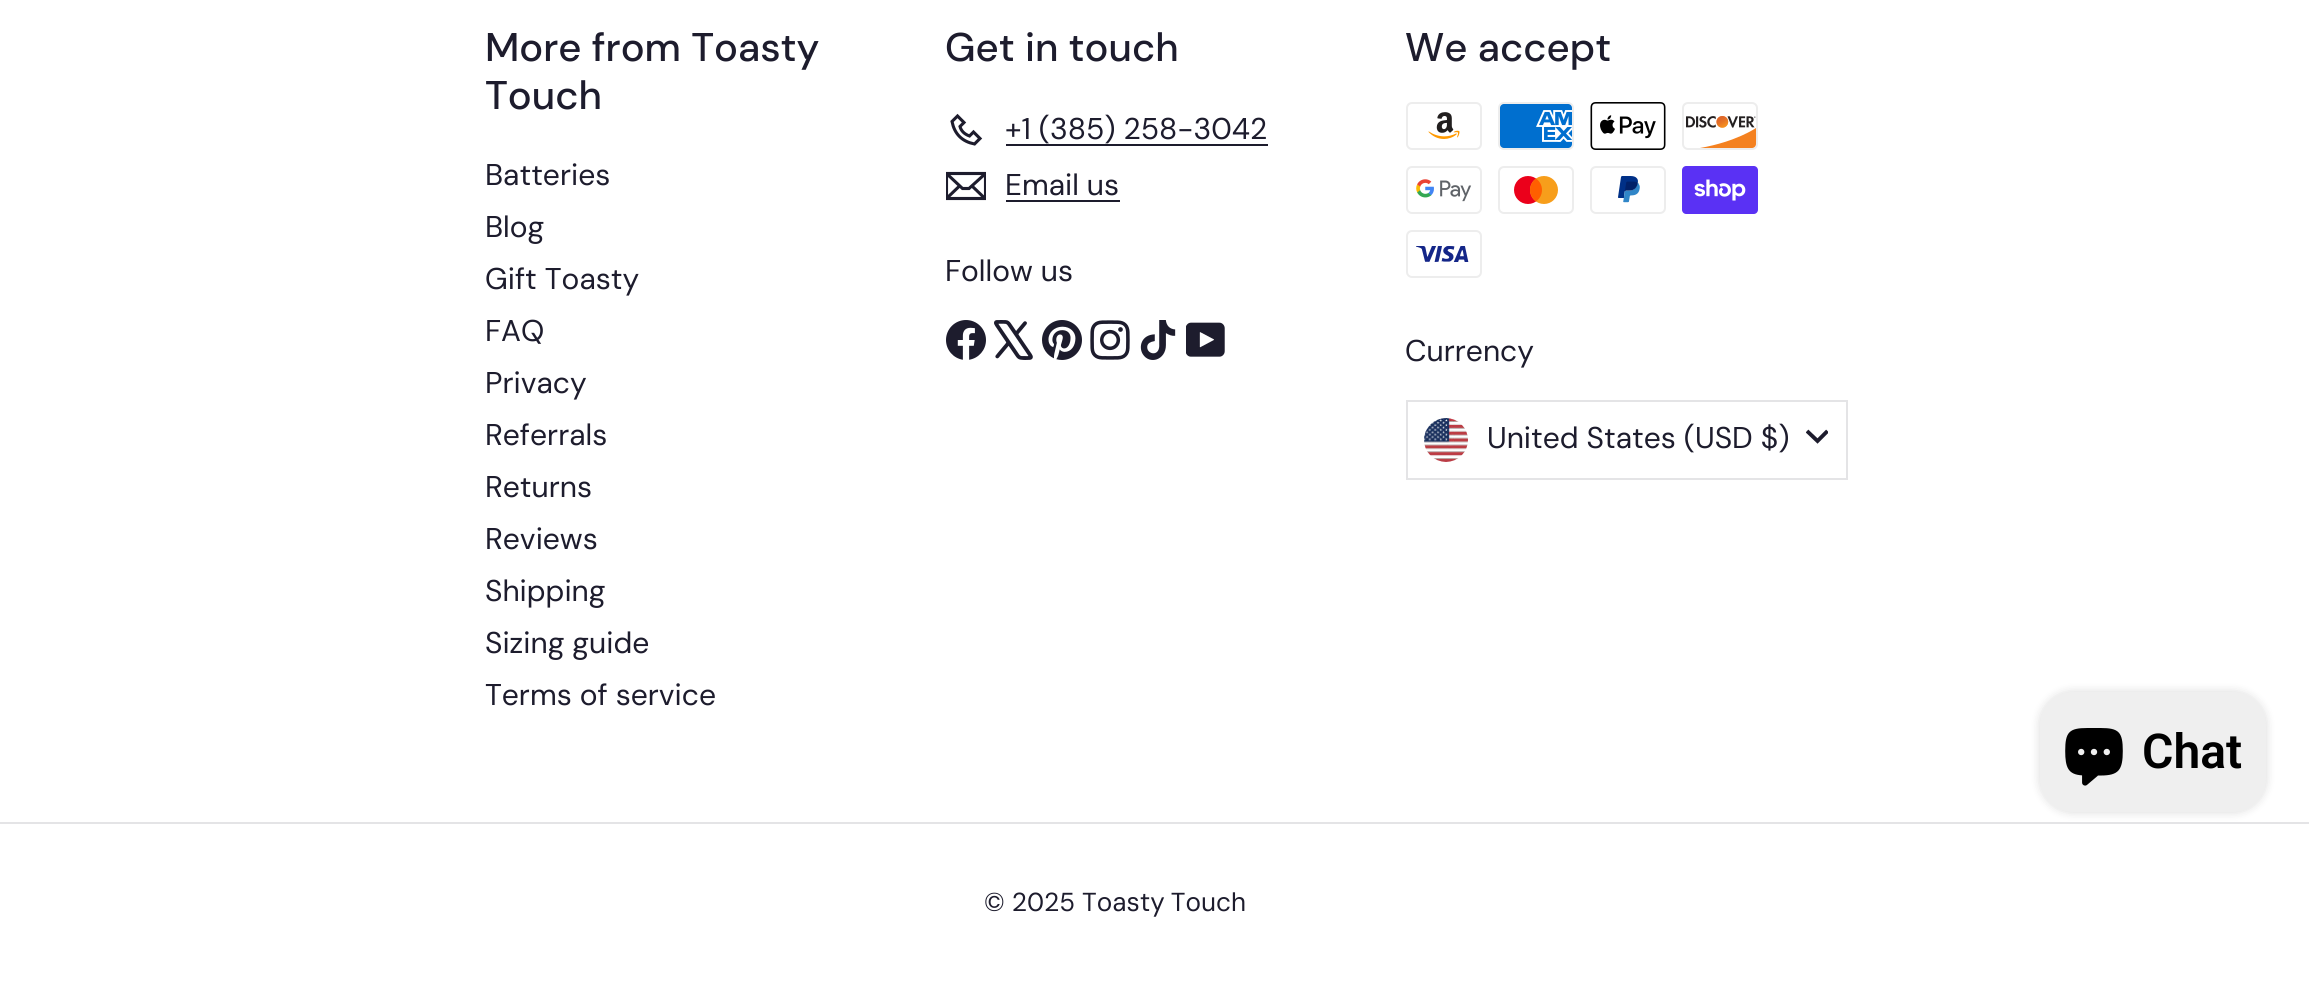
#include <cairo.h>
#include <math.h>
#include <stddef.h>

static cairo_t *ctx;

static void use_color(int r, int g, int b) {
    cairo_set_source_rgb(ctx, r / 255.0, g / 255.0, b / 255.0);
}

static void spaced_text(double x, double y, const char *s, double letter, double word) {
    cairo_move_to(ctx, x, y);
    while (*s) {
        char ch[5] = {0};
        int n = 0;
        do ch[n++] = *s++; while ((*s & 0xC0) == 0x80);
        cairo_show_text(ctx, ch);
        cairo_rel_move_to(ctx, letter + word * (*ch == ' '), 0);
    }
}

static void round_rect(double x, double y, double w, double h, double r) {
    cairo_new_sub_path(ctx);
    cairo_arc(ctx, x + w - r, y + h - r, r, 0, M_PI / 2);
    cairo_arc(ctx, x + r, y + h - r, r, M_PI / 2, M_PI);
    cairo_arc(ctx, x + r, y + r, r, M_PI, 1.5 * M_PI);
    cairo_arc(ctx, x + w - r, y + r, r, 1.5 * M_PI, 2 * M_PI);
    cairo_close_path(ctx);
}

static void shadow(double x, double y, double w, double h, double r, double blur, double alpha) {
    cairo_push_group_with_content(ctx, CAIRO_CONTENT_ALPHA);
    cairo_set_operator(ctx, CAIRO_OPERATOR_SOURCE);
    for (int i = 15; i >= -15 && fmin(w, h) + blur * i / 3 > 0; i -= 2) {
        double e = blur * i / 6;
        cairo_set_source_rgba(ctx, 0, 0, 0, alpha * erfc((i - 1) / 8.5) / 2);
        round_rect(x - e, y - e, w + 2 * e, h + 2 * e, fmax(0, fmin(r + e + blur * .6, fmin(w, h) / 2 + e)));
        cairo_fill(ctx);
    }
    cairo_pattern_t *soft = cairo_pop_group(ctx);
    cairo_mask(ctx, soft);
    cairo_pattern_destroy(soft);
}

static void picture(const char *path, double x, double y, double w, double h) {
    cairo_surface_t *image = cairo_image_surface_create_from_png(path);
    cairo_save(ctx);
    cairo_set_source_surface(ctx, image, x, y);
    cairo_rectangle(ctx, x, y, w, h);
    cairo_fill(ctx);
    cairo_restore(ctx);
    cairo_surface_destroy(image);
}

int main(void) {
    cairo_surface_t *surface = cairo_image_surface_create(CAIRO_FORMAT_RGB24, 2309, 981);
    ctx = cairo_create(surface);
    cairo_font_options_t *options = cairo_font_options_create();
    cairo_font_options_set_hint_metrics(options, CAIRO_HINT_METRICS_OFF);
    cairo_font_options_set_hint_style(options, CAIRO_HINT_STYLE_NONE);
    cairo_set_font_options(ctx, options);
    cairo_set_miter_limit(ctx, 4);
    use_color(255, 255, 255);
    cairo_paint(ctx);
    cairo_select_font_face(ctx, "DM Sans Medium", CAIRO_FONT_SLANT_NORMAL, CAIRO_FONT_WEIGHT_NORMAL);
    cairo_set_font_size(ctx, 40);
    use_color(29, 28, 45);
    cairo_move_to(ctx, 485, 61);
    cairo_show_text(ctx, "More from Toasty");
    cairo_move_to(ctx, 485, 109);
    cairo_show_text(ctx, "Touch");
    cairo_select_font_face(ctx, "DM Sans", CAIRO_FONT_SLANT_NORMAL, CAIRO_FONT_WEIGHT_NORMAL);
    cairo_set_font_size(ctx, 30);
    cairo_move_to(ctx, 485, 185);
    cairo_show_text(ctx, "Batteries");
    cairo_move_to(ctx, 485, 237);
    cairo_show_text(ctx, "Blog");
    cairo_move_to(ctx, 485, 289);
    cairo_show_text(ctx, "Gift Toasty");
    cairo_move_to(ctx, 485, 341);
    cairo_show_text(ctx, "FAQ");
    cairo_move_to(ctx, 485, 393);
    cairo_show_text(ctx, "Privacy");
    cairo_move_to(ctx, 485, 445);
    cairo_show_text(ctx, "Referrals");
    cairo_move_to(ctx, 485, 497);
    cairo_show_text(ctx, "Returns");
    cairo_move_to(ctx, 485, 549);
    cairo_show_text(ctx, "Reviews");
    cairo_move_to(ctx, 485, 601);
    cairo_show_text(ctx, "Shipping");
    cairo_move_to(ctx, 485, 653);
    cairo_show_text(ctx, "Sizing guide");
    cairo_move_to(ctx, 485, 705);
    cairo_show_text(ctx, "Terms of service");
    cairo_select_font_face(ctx, "DM Sans Medium", CAIRO_FONT_SLANT_NORMAL, CAIRO_FONT_WEIGHT_NORMAL);
    cairo_set_font_size(ctx, 40);
    cairo_move_to(ctx, 945, 61);
    cairo_show_text(ctx, "Get in touch");
    cairo_new_path(ctx);
    cairo_move_to(ctx, 957.5, 116);
    cairo_line_to(ctx, 964, 122.5);
    cairo_line_to(ctx, 960, 126.5);
    cairo_curve_to(ctx, 961, 130.5, 964, 134, 969.5, 136);
    cairo_line_to(ctx, 973.5, 132);
    cairo_line_to(ctx, 980, 138.5);
    cairo_line_to(ctx, 974.5, 144);
    cairo_curve_to(ctx, 962, 141.5, 954.5, 134, 952, 121.5);
    cairo_close_path(ctx);
    cairo_set_line_width(ctx, 3.1);
    cairo_stroke(ctx);
    cairo_select_font_face(ctx, "DM Sans", CAIRO_FONT_SLANT_NORMAL, CAIRO_FONT_WEIGHT_NORMAL);
    cairo_set_font_size(ctx, 30);
    cairo_move_to(ctx, 1005, 139);
    cairo_show_text(ctx, "+1 (385) 258-3042");
    cairo_rectangle(ctx, 1006, 144, 262, 2);
    cairo_fill(ctx);
    cairo_save(ctx);
    cairo_rectangle(ctx, 946, 166, 40, 40);
    cairo_clip(ctx);
    cairo_new_path(ctx);
    cairo_move_to(ctx, 985.5, 198.5);
    cairo_line_to(ctx, 946.5, 198.5);
    cairo_line_to(ctx, 946.5, 173.5);
    cairo_line_to(ctx, 985.5, 173.5);
    cairo_close_path(ctx);
    cairo_move_to(ctx, 946.5, 173.5);
    cairo_line_to(ctx, 962.5, 188.5);
    cairo_line_to(ctx, 969, 188.5);
    cairo_line_to(ctx, 985.5, 173.5);
    cairo_move_to(ctx, 959.5, 186);
    cairo_line_to(ctx, 947, 198);
    cairo_move_to(ctx, 985, 198.5);
    cairo_line_to(ctx, 972, 186);
    cairo_stroke(ctx);
    cairo_restore(ctx);
    cairo_move_to(ctx, 1005, 195);
    cairo_show_text(ctx, "Email us");
    cairo_rectangle(ctx, 1006, 200, 114, 2);
    cairo_fill(ctx);
    cairo_move_to(ctx, 945, 281);
    cairo_show_text(ctx, "Follow us");
    picture("img1.png", 946, 320, 40, 40);
    picture("img2.png", 994, 320, 39, 40);
    picture("img3.png", 1042, 320, 40, 40);
    picture("img4.png", 1090, 320, 40, 40);
    picture("img5.png", 1140, 320, 36, 40);
    picture("img6.png", 1186, 322, 39, 35);
    cairo_select_font_face(ctx, "DM Sans Medium", CAIRO_FONT_SLANT_NORMAL, CAIRO_FONT_WEIGHT_NORMAL);
    cairo_set_font_size(ctx, 40);
    cairo_move_to(ctx, 1405, 61);
    cairo_show_text(ctx, "We accept");
    picture("img7.png", 1406, 102, 76, 48);
    picture("img8.png", 1498, 102, 76, 48);
    picture("img9.png", 1590, 102, 76, 48);
    picture("img10.png", 1682, 102, 76, 48);
    picture("img11.png", 1406, 166, 76, 48);
    picture("img12.png", 1498, 166, 76, 48);
    picture("img13.png", 1590, 166, 76, 48);
    picture("img14.png", 1682, 166, 76, 48);
    picture("img15.png", 1406, 230, 76, 48);
    cairo_select_font_face(ctx, "DM Sans", CAIRO_FONT_SLANT_NORMAL, CAIRO_FONT_WEIGHT_NORMAL);
    cairo_set_font_size(ctx, 30);
    cairo_move_to(ctx, 1405, 361);
    cairo_show_text(ctx, "Currency");
    cairo_rectangle(ctx, 1407, 401, 440, 78);
    use_color(228, 228, 230);
    cairo_set_line_width(ctx, 2);
    cairo_stroke(ctx);
    picture("img16.png", 1424, 418, 44, 44);
    use_color(29, 28, 45);
    cairo_move_to(ctx, 1487, 448);
    cairo_show_text(ctx, "United States (USD $)");
    cairo_save(ctx);
    cairo_rectangle(ctx, 1806, 426, 22, 22);
    cairo_clip(ctx);
    cairo_new_path(ctx);
    cairo_move_to(ctx, 1807, 431);
    cairo_line_to(ctx, 1817.5, 441);
    cairo_line_to(ctx, 1827.5, 431);
    cairo_set_line_width(ctx, 3.9);
    cairo_stroke(ctx);
    cairo_restore(ctx);
    use_color(228, 228, 230);
    cairo_rectangle(ctx, 0, 822, 2309, 2);
    cairo_fill(ctx);
    cairo_select_font_face(ctx, "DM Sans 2", CAIRO_FONT_SLANT_NORMAL, CAIRO_FONT_WEIGHT_NORMAL);
    cairo_set_font_size(ctx, 26);
    use_color(29, 28, 45);
    cairo_move_to(ctx, 984, 911);
    cairo_show_text(ctx, "© 2025");
    spaced_text(1082, 911, "Toasty Touch", 0, -1);
    use_color(0, 0, 0);
    shadow(2040, 692, 226, 120, 32, 5, 0.15);
    use_color(239, 239, 239);
    round_rect(2040, 692, 226, 120, 32);
    cairo_fill(ctx);
    picture("img17.png", 2065, 728, 58, 58);
    cairo_select_font_face(ctx, "Roboto SemiBold", CAIRO_FONT_SLANT_NORMAL, CAIRO_FONT_WEIGHT_NORMAL);
    cairo_set_font_size(ctx, 48);
    use_color(0, 0, 0);
    cairo_move_to(ctx, 2142, 768);
    cairo_show_text(ctx, "Chat");
    cairo_surface_write_to_png(surface, "result.png");
    cairo_font_options_destroy(options);
    cairo_destroy(ctx);
    cairo_surface_destroy(surface);
    return 0;
}
